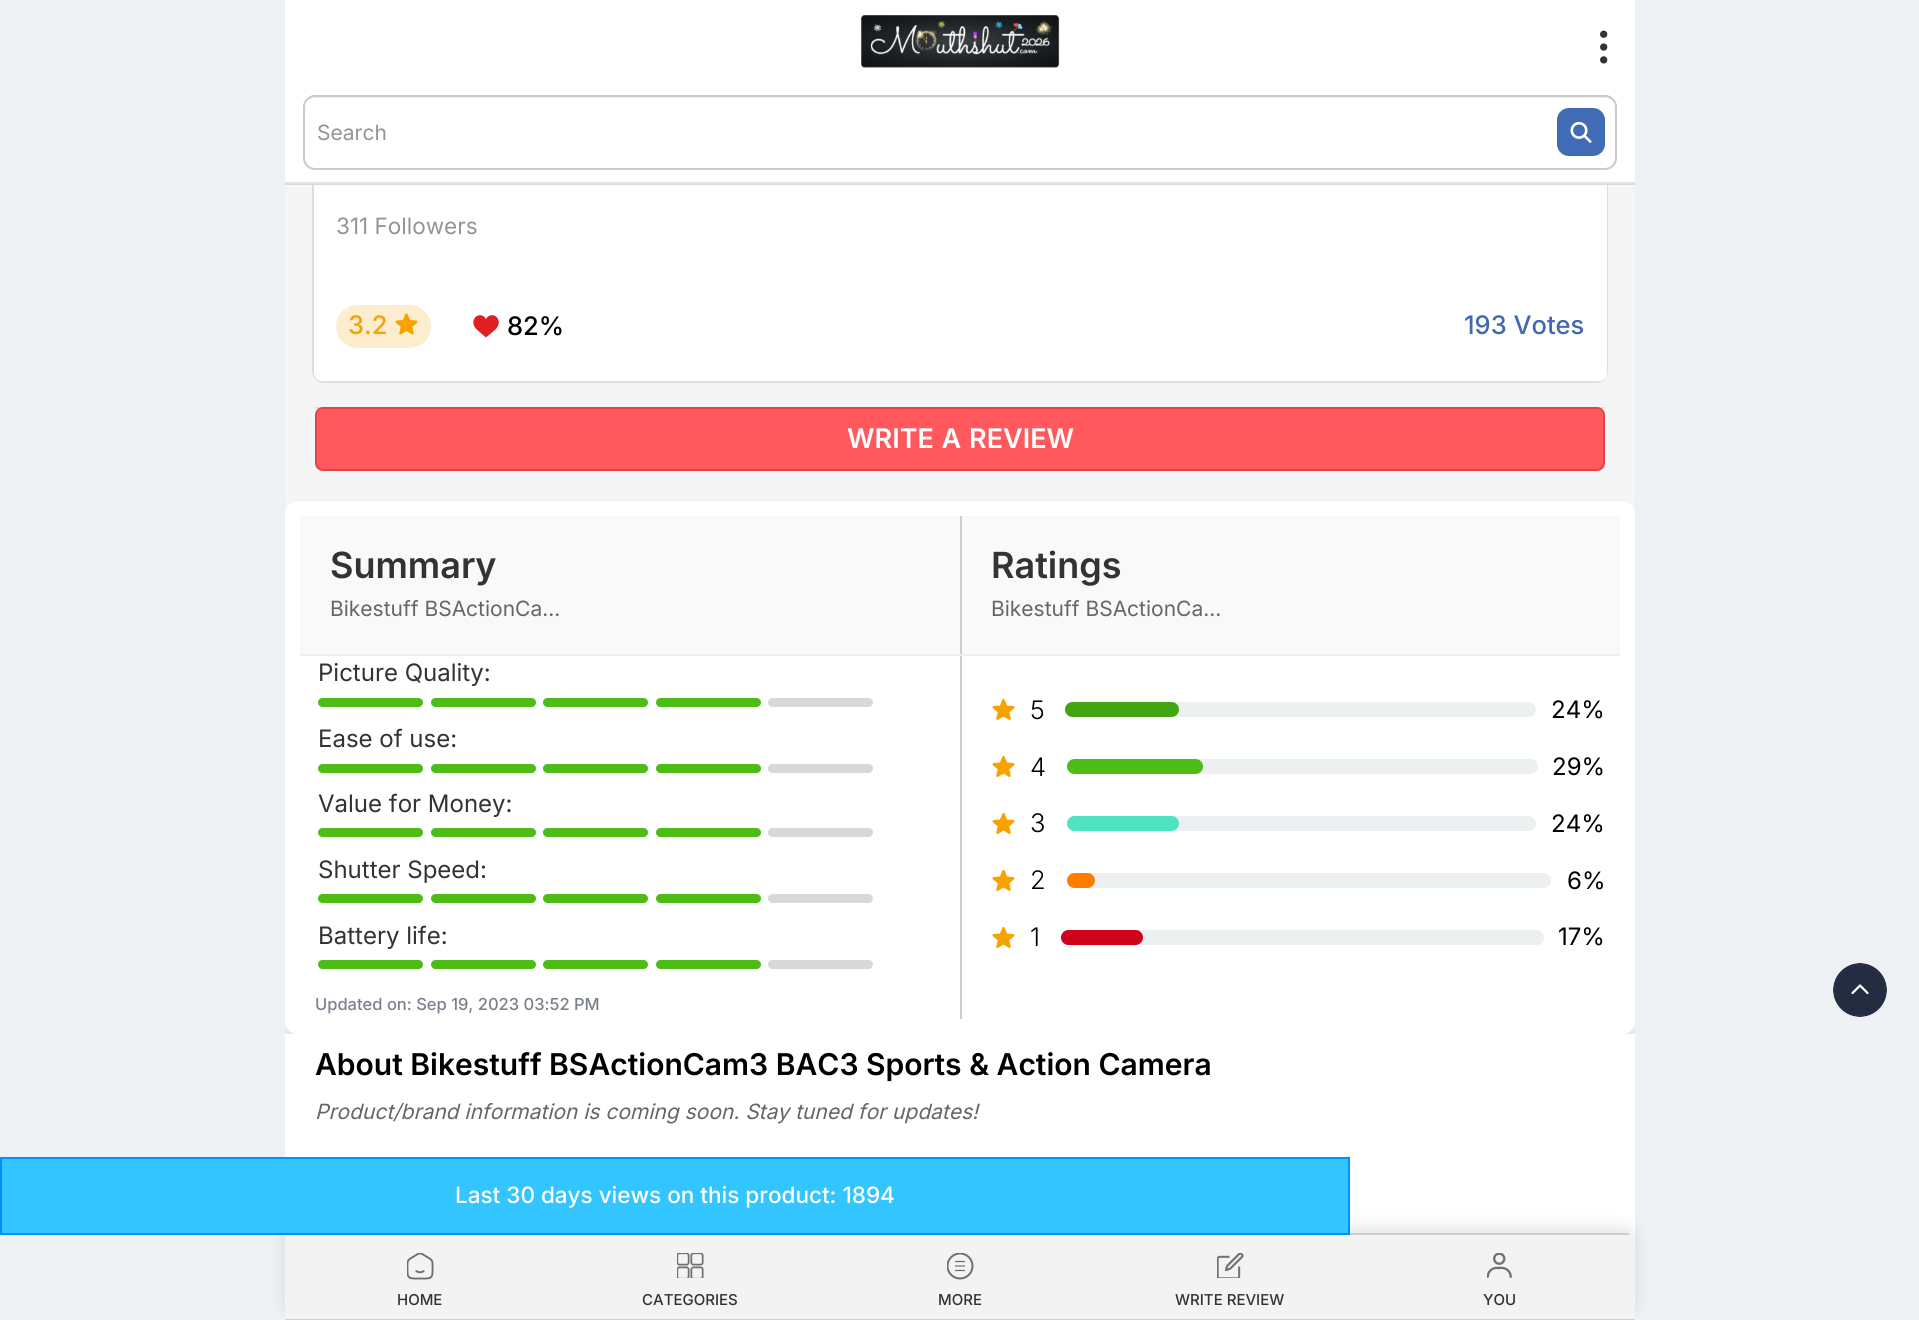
#include <cairo.h>
#include <math.h>
#include <stddef.h>

static cairo_t *ctx;

static void use_color(int r, int g, int b) {
    cairo_set_source_rgb(ctx, r / 255.0, g / 255.0, b / 255.0);
}

static void spaced_text(double x, double y, const char *s, double letter, double word) {
    cairo_move_to(ctx, x, y);
    while (*s) {
        char ch[5] = {0};
        int n = 0;
        do ch[n++] = *s++; while ((*s & 0xC0) == 0x80);
        cairo_show_text(ctx, ch);
        cairo_rel_move_to(ctx, letter + word * (*ch == ' '), 0);
    }
}

static void round_rect(double x, double y, double w, double h, double r) {
    cairo_new_sub_path(ctx);
    cairo_arc(ctx, x + w - r, y + h - r, r, 0, M_PI / 2);
    cairo_arc(ctx, x + r, y + h - r, r, M_PI / 2, M_PI);
    cairo_arc(ctx, x + r, y + r, r, M_PI, 1.5 * M_PI);
    cairo_arc(ctx, x + w - r, y + r, r, 1.5 * M_PI, 2 * M_PI);
    cairo_close_path(ctx);
}

static void shadow(double x, double y, double w, double h, double r, double blur, double alpha) {
    cairo_push_group_with_content(ctx, CAIRO_CONTENT_ALPHA);
    cairo_set_operator(ctx, CAIRO_OPERATOR_SOURCE);
    for (int i = 15; i >= -15 && fmin(w, h) + blur * i / 3 > 0; i -= 2) {
        double e = blur * i / 6;
        cairo_set_source_rgba(ctx, 0, 0, 0, alpha * erfc((i - 1) / 8.5) / 2);
        round_rect(x - e, y - e, w + 2 * e, h + 2 * e, fmax(0, fmin(r + e + blur * .6, fmin(w, h) / 2 + e)));
        cairo_fill(ctx);
    }
    cairo_pattern_t *soft = cairo_pop_group(ctx);
    cairo_mask(ctx, soft);
    cairo_pattern_destroy(soft);
}

static void picture(const char *path, double x, double y, double w, double h) {
    cairo_surface_t *image = cairo_image_surface_create_from_png(path);
    cairo_save(ctx);
    cairo_set_source_surface(ctx, image, x, y);
    cairo_rectangle(ctx, x, y, w, h);
    cairo_fill(ctx);
    cairo_restore(ctx);
    cairo_surface_destroy(image);
}

int main(void) {
    cairo_surface_t *surface = cairo_image_surface_create(CAIRO_FORMAT_RGB24, 1919, 1320);
    ctx = cairo_create(surface);
    cairo_font_options_t *options = cairo_font_options_create();
    cairo_font_options_set_hint_metrics(options, CAIRO_HINT_METRICS_OFF);
    cairo_font_options_set_hint_style(options, CAIRO_HINT_STYLE_NONE);
    cairo_set_font_options(ctx, options);
    cairo_set_miter_limit(ctx, 4);
    use_color(237, 241, 244);
    cairo_paint(ctx);
    use_color(245, 245, 245);
    cairo_rectangle(ctx, 285, 185, 1350, 849);
    cairo_fill(ctx);
    round_rect(313, -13, 1294, 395, 11);
    use_color(221, 221, 221);
    cairo_stroke(ctx);
    use_color(255, 255, 255);
    cairo_new_path(ctx);
    cairo_move_to(ctx, 314, 120);
    cairo_line_to(ctx, 1607, 120);
    cairo_line_to(ctx, 1607, 373);
    cairo_curve_to(ctx, 1607, 377.5, 1603.5, 381, 1599, 381);
    cairo_line_to(ctx, 322, 381);
    cairo_curve_to(ctx, 317.5, 381, 314, 377.5, 314, 373);
    cairo_close_path(ctx);
    cairo_fill(ctx);
    cairo_rectangle(ctx, 285, 0, 1350, 182);
    cairo_fill(ctx);
    use_color(217, 217, 217);
    cairo_rectangle(ctx, 285, 184, 1350, 1);
    cairo_fill(ctx);
    picture("img1.png", 861, 15, 199, 53);
    picture("img2.png", 1600, 30, 8, 34);
    use_color(225, 225, 225);
    cairo_rectangle(ctx, 285, 182, 1350, 2);
    cairo_fill(ctx);
    use_color(235, 235, 235);
    cairo_new_path(ctx);
    cairo_move_to(ctx, 315, 98);
    cairo_line_to(ctx, 1605, 98);
    cairo_curve_to(ctx, 1611, 98, 1616, 102, 1616, 108);
    cairo_line_to(ctx, 1616, 107);
    cairo_curve_to(ctx, 1616, 101, 1611, 96, 1605, 96);
    cairo_line_to(ctx, 316, 96);
    cairo_curve_to(ctx, 312, 96, 308, 98, 306, 102);
    cairo_curve_to(ctx, 308, 99, 312, 98, 315, 98);
    cairo_close_path(ctx);
    cairo_fill(ctx);
    round_rect(304, 96, 1312, 73, 11);
    use_color(202, 202, 202);
    cairo_stroke(ctx);
    cairo_select_font_face(ctx, "Inter", CAIRO_FONT_SLANT_NORMAL, CAIRO_FONT_WEIGHT_NORMAL);
    cairo_set_font_size(ctx, 21);
    use_color(148, 148, 148);
    cairo_move_to(ctx, 317, 140);
    cairo_show_text(ctx, "Search");
    picture("img3.png", 1557, 108, 48, 48);
    cairo_set_font_size(ctx, 22.5);
    cairo_move_to(ctx, 336, 234);
    cairo_show_text(ctx, "311 Followers");
    use_color(253, 237, 207);
    round_rect(336, 305, 95, 43, 21.5);
    cairo_fill(ctx);
    cairo_select_font_face(ctx, "Inter Medium", CAIRO_FONT_SLANT_NORMAL, CAIRO_FONT_WEIGHT_NORMAL);
    cairo_set_font_size(ctx, 25.5);
    use_color(247, 162, 0);
    cairo_move_to(ctx, 348, 334);
    cairo_show_text(ctx, "3.2");
    picture("img4.png", 395, 313, 23, 22);
    picture("img5.png", 473, 315, 26, 23);
    use_color(0, 0, 0);
    cairo_move_to(ctx, 507, 335);
    cairo_show_text(ctx, "82%");
    use_color(65, 105, 178);
    cairo_move_to(ctx, 1464, 334);
    cairo_show_text(ctx, "193 Votes");
    use_color(224, 225, 227);
    cairo_rectangle(ctx, 315, 407, 1290, 2);
    cairo_fill(ctx);
    use_color(255, 89, 94);
    round_rect(316, 408, 1288, 62, 7);
    cairo_fill_preserve(ctx);
    use_color(225, 68, 73);
    cairo_stroke(ctx);
    cairo_select_font_face(ctx, "Inter SemiBold", CAIRO_FONT_SLANT_NORMAL, CAIRO_FONT_WEIGHT_NORMAL);
    cairo_set_font_size(ctx, 27);
    use_color(255, 255, 255);
    spaced_text(847, 448, "WRITE A REVIEW", 0, 1);
    cairo_save(ctx);
    cairo_rectangle(ctx, 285, 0, 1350, 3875);
    cairo_clip(ctx);
    use_color(0, 0, 0);
    shadow(285, 507, 1350, 533, 12, 6, 0.1);
    cairo_restore(ctx);
    round_rect(285, 501, 1350, 533, 12);
    cairo_fill(ctx);
    use_color(249, 249, 249);
    cairo_rectangle(ctx, 300, 516, 1320, 138);
    cairo_fill(ctx);
    use_color(238, 238, 238);
    cairo_rectangle(ctx, 300, 654, 1320, 2);
    cairo_fill(ctx);
    cairo_set_font_size(ctx, 36);
    use_color(51, 51, 51);
    cairo_move_to(ctx, 330, 578);
    cairo_show_text(ctx, "Summary");
    cairo_select_font_face(ctx, "Inter", CAIRO_FONT_SLANT_NORMAL, CAIRO_FONT_WEIGHT_NORMAL);
    cairo_set_font_size(ctx, 21);
    use_color(102, 102, 102);
    cairo_move_to(ctx, 330, 616);
    cairo_show_text(ctx, "Bikestuff BSActionCa...");
    use_color(204, 204, 204);
    cairo_rectangle(ctx, 960, 516, 2, 138);
    cairo_fill(ctx);
    cairo_select_font_face(ctx, "Inter SemiBold", CAIRO_FONT_SLANT_NORMAL, CAIRO_FONT_WEIGHT_NORMAL);
    cairo_set_font_size(ctx, 36);
    use_color(51, 51, 51);
    cairo_move_to(ctx, 991, 578);
    cairo_show_text(ctx, "Ratings");
    cairo_select_font_face(ctx, "Inter", CAIRO_FONT_SLANT_NORMAL, CAIRO_FONT_WEIGHT_NORMAL);
    cairo_set_font_size(ctx, 21);
    use_color(102, 102, 102);
    cairo_move_to(ctx, 991, 616);
    cairo_show_text(ctx, "Bikestuff BSActionCa...");
    cairo_set_font_size(ctx, 24);
    use_color(51, 51, 51);
    cairo_move_to(ctx, 318, 681);
    cairo_show_text(ctx, "Picture Quality:");
    use_color(77, 188, 22);
    round_rect(318, 698, 105, 9, 4.5);
    cairo_fill(ctx);
    round_rect(431, 698, 105, 9, 4.5);
    cairo_fill(ctx);
    round_rect(543, 698, 105, 9, 4.5);
    cairo_fill(ctx);
    round_rect(656, 698, 105, 9, 4.5);
    cairo_fill(ctx);
    use_color(216, 216, 216);
    round_rect(768, 698, 105, 9, 4.5);
    cairo_fill(ctx);
    use_color(51, 51, 51);
    cairo_move_to(ctx, 318, 747);
    cairo_show_text(ctx, "Ease of use:");
    use_color(77, 188, 22);
    round_rect(318, 764, 105, 9, 4.5);
    cairo_fill(ctx);
    round_rect(431, 764, 105, 9, 4.5);
    cairo_fill(ctx);
    round_rect(543, 764, 105, 9, 4.5);
    cairo_fill(ctx);
    round_rect(656, 764, 105, 9, 4.5);
    cairo_fill(ctx);
    use_color(216, 216, 216);
    round_rect(768, 764, 105, 9, 4.5);
    cairo_fill(ctx);
    use_color(51, 51, 51);
    cairo_move_to(ctx, 318, 812);
    cairo_show_text(ctx, "Value for Money:");
    use_color(77, 188, 22);
    round_rect(318, 828, 105, 9, 4.5);
    cairo_fill(ctx);
    round_rect(431, 828, 105, 9, 4.5);
    cairo_fill(ctx);
    round_rect(543, 828, 105, 9, 4.5);
    cairo_fill(ctx);
    round_rect(656, 828, 105, 9, 4.5);
    cairo_fill(ctx);
    use_color(216, 216, 216);
    round_rect(768, 828, 105, 9, 4.5);
    cairo_fill(ctx);
    use_color(51, 51, 51);
    cairo_move_to(ctx, 318, 878);
    cairo_show_text(ctx, "Shutter Speed:");
    use_color(77, 188, 22);
    round_rect(318, 894, 105, 9, 4.5);
    cairo_fill(ctx);
    round_rect(431, 894, 105, 9, 4.5);
    cairo_fill(ctx);
    round_rect(543, 894, 105, 9, 4.5);
    cairo_fill(ctx);
    round_rect(656, 894, 105, 9, 4.5);
    cairo_fill(ctx);
    use_color(216, 216, 216);
    round_rect(768, 894, 105, 9, 4.5);
    cairo_fill(ctx);
    use_color(51, 51, 51);
    cairo_move_to(ctx, 318, 944);
    cairo_show_text(ctx, "Battery life:");
    use_color(77, 188, 22);
    round_rect(318, 960, 105, 9, 4.5);
    cairo_fill(ctx);
    round_rect(431, 960, 105, 9, 4.5);
    cairo_fill(ctx);
    round_rect(543, 960, 105, 9, 4.5);
    cairo_fill(ctx);
    round_rect(656, 960, 105, 9, 4.5);
    cairo_fill(ctx);
    use_color(216, 216, 216);
    round_rect(768, 960, 105, 9, 4.5);
    cairo_fill(ctx);
    cairo_select_font_face(ctx, "Inter Medium", CAIRO_FONT_SLANT_NORMAL, CAIRO_FONT_WEIGHT_NORMAL);
    cairo_set_font_size(ctx, 16.5);
    use_color(124, 128, 142);
    cairo_move_to(ctx, 315, 1010);
    cairo_show_text(ctx, "Updated on: Sep 19, 2023 03:52 PM");
    use_color(204, 204, 204);
    cairo_rectangle(ctx, 960, 656, 2, 363);
    cairo_fill(ctx);
    picture("img6.png", 992, 699, 23, 21);
    cairo_select_font_face(ctx, "Inter Light", CAIRO_FONT_SLANT_NORMAL, CAIRO_FONT_WEIGHT_NORMAL);
    cairo_set_font_size(ctx, 25.5);
    use_color(0, 0, 0);
    cairo_move_to(ctx, 1030, 719);
    cairo_show_text(ctx, "5");
    use_color(236, 240, 241);
    round_rect(1065, 702, 471, 15, 7.5);
    cairo_fill(ctx);
    use_color(68, 165, 18);
    round_rect(1065, 702, 114, 15, 7.5);
    cairo_fill(ctx);
    cairo_select_font_face(ctx, "Inter", CAIRO_FONT_SLANT_NORMAL, CAIRO_FONT_WEIGHT_NORMAL);
    cairo_set_font_size(ctx, 24);
    use_color(0, 0, 0);
    cairo_move_to(ctx, 1551, 718);
    cairo_show_text(ctx, "24%");
    picture("img6.png", 992, 756, 23, 21);
    cairo_select_font_face(ctx, "Inter Light", CAIRO_FONT_SLANT_NORMAL, CAIRO_FONT_WEIGHT_NORMAL);
    cairo_set_font_size(ctx, 25.5);
    cairo_move_to(ctx, 1030, 776);
    cairo_show_text(ctx, "4");
    use_color(236, 240, 241);
    round_rect(1067, 759, 471, 15, 7.5);
    cairo_fill(ctx);
    use_color(77, 188, 22);
    round_rect(1067, 759, 136, 15, 7.5);
    cairo_fill(ctx);
    cairo_select_font_face(ctx, "Inter", CAIRO_FONT_SLANT_NORMAL, CAIRO_FONT_WEIGHT_NORMAL);
    cairo_set_font_size(ctx, 24);
    use_color(0, 0, 0);
    cairo_move_to(ctx, 1552, 775);
    cairo_show_text(ctx, "29%");
    picture("img6.png", 992, 813, 23, 21);
    cairo_select_font_face(ctx, "Inter Light", CAIRO_FONT_SLANT_NORMAL, CAIRO_FONT_WEIGHT_NORMAL);
    cairo_set_font_size(ctx, 25.5);
    cairo_move_to(ctx, 1030, 832);
    cairo_show_text(ctx, "3");
    use_color(236, 240, 241);
    round_rect(1067, 816, 469, 15, 7.5);
    cairo_fill(ctx);
    use_color(80, 227, 194);
    round_rect(1067, 816, 112, 15, 7.5);
    cairo_fill(ctx);
    cairo_select_font_face(ctx, "Inter", CAIRO_FONT_SLANT_NORMAL, CAIRO_FONT_WEIGHT_NORMAL);
    cairo_set_font_size(ctx, 24);
    use_color(0, 0, 0);
    cairo_move_to(ctx, 1551, 832);
    cairo_show_text(ctx, "24%");
    picture("img6.png", 992, 870, 23, 21);
    cairo_select_font_face(ctx, "Inter Light", CAIRO_FONT_SLANT_NORMAL, CAIRO_FONT_WEIGHT_NORMAL);
    cairo_set_font_size(ctx, 25.5);
    cairo_move_to(ctx, 1030, 889);
    cairo_show_text(ctx, "2");
    use_color(236, 240, 241);
    round_rect(1067, 873, 484, 15, 7.5);
    cairo_fill(ctx);
    use_color(255, 124, 0);
    round_rect(1067, 873, 28, 15, 7.5);
    cairo_fill(ctx);
    cairo_select_font_face(ctx, "Inter", CAIRO_FONT_SLANT_NORMAL, CAIRO_FONT_WEIGHT_NORMAL);
    cairo_set_font_size(ctx, 24);
    use_color(0, 0, 0);
    cairo_move_to(ctx, 1567, 889);
    cairo_show_text(ctx, "6%");
    picture("img6.png", 992, 927, 23, 21);
    cairo_select_font_face(ctx, "Inter Light", CAIRO_FONT_SLANT_NORMAL, CAIRO_FONT_WEIGHT_NORMAL);
    cairo_set_font_size(ctx, 25.5);
    cairo_move_to(ctx, 1030, 946);
    cairo_show_text(ctx, "1");
    use_color(236, 240, 241);
    round_rect(1061, 930, 483, 15, 7.5);
    cairo_fill(ctx);
    use_color(208, 2, 27);
    round_rect(1061, 930, 82, 15, 7.5);
    cairo_fill(ctx);
    cairo_select_font_face(ctx, "Inter", CAIRO_FONT_SLANT_NORMAL, CAIRO_FONT_WEIGHT_NORMAL);
    cairo_set_font_size(ctx, 24);
    use_color(0, 0, 0);
    cairo_move_to(ctx, 1558, 945);
    cairo_show_text(ctx, "17%");
    use_color(255, 255, 255);
    cairo_rectangle(ctx, 285, 1034, 1350, 211);
    cairo_fill(ctx);
    cairo_select_font_face(ctx, "Inter SemiBold", CAIRO_FONT_SLANT_NORMAL, CAIRO_FONT_WEIGHT_NORMAL);
    cairo_set_font_size(ctx, 30);
    use_color(0, 0, 0);
    cairo_move_to(ctx, 315, 1075);
    cairo_show_text(ctx, "About Bikestuff BSActionCam3 BAC3 Sports & Action Camera");
    cairo_select_font_face(ctx, "Inter", CAIRO_FONT_SLANT_ITALIC, CAIRO_FONT_WEIGHT_NORMAL);
    cairo_set_font_size(ctx, 21);
    use_color(102, 102, 102);
    cairo_move_to(ctx, 315, 1119);
    cairo_show_text(ctx, "Product/brand information is coming soon. Stay tuned for updates!");
    picture("img7.png", 1833, 963, 54, 54);
    use_color(0, 0, 0);
    shadow(285, 1227, 1350, 87, 12, 7.5, 0.1);
    use_color(243, 243, 243);
    cairo_new_path(ctx);
    cairo_move_to(ctx, 297, 1233);
    cairo_line_to(ctx, 1623, 1233);
    cairo_curve_to(ctx, 1629.5, 1233, 1635, 1238.5, 1635, 1245);
    cairo_line_to(ctx, 1635, 1320);
    cairo_line_to(ctx, 285, 1320);
    cairo_line_to(ctx, 285, 1245);
    cairo_curve_to(ctx, 285, 1238.5, 290.5, 1233, 297, 1233);
    cairo_close_path(ctx);
    cairo_fill(ctx);
    use_color(206, 206, 206);
    cairo_rectangle(ctx, 1350, 1233, 279, 2);
    cairo_fill(ctx);
    cairo_rectangle(ctx, 285, 1319, 1350, 1);
    cairo_fill(ctx);
    picture("img8.png", 407, 1253, 27, 27);
    cairo_select_font_face(ctx, "Inter Medium", CAIRO_FONT_SLANT_NORMAL, CAIRO_FONT_WEIGHT_NORMAL);
    cairo_set_font_size(ctx, 15);
    use_color(51, 51, 51);
    cairo_move_to(ctx, 397, 1305);
    cairo_show_text(ctx, "HOME");
    picture("img9.png", 677, 1253, 27, 25);
    cairo_move_to(ctx, 642, 1305);
    cairo_show_text(ctx, "CATEGORIES");
    picture("img10.png", 947, 1253, 27, 27);
    cairo_move_to(ctx, 938, 1305);
    cairo_show_text(ctx, "MORE");
    picture("img11.png", 1217, 1253, 27, 25);
    cairo_move_to(ctx, 1175, 1305);
    cairo_show_text(ctx, "WRITE REVIEW");
    picture("img12.png", 1487, 1253, 25, 25);
    cairo_move_to(ctx, 1483, 1305);
    cairo_show_text(ctx, "YOU");
    use_color(50, 197, 255);
    cairo_rectangle(ctx, 1, 1158, 1348, 76);
    cairo_fill_preserve(ctx);
    use_color(0, 145, 255);
    cairo_stroke(ctx);
    cairo_set_font_size(ctx, 22.5);
    use_color(255, 255, 255);
    cairo_move_to(ctx, 455, 1203);
    cairo_show_text(ctx, "Last 30 days views on this product: 1894");
    cairo_surface_write_to_png(surface, "result.png");
    cairo_font_options_destroy(options);
    cairo_destroy(ctx);
    cairo_surface_destroy(surface);
    return 0;
}
